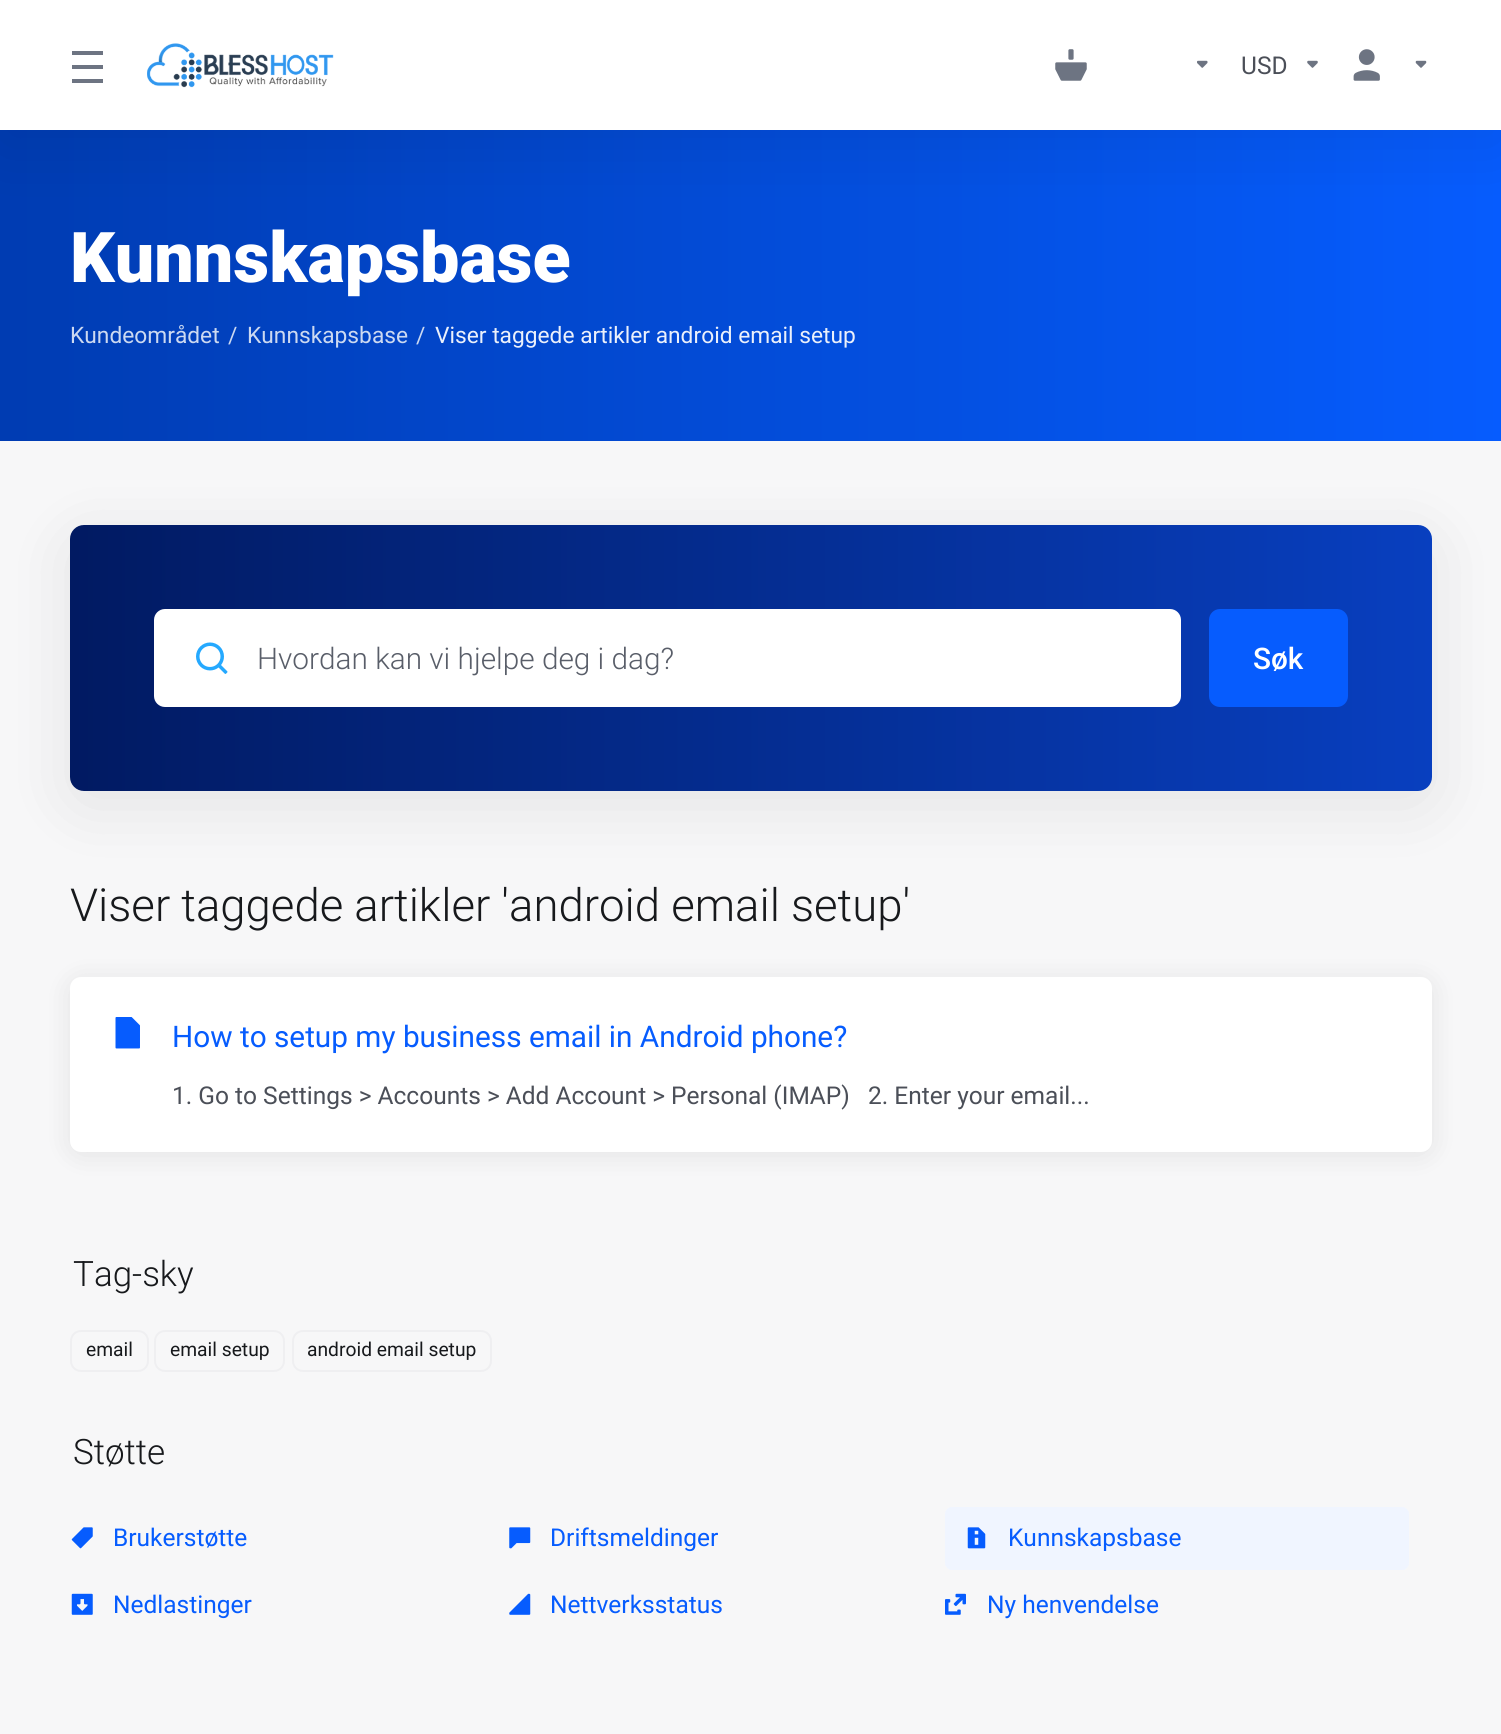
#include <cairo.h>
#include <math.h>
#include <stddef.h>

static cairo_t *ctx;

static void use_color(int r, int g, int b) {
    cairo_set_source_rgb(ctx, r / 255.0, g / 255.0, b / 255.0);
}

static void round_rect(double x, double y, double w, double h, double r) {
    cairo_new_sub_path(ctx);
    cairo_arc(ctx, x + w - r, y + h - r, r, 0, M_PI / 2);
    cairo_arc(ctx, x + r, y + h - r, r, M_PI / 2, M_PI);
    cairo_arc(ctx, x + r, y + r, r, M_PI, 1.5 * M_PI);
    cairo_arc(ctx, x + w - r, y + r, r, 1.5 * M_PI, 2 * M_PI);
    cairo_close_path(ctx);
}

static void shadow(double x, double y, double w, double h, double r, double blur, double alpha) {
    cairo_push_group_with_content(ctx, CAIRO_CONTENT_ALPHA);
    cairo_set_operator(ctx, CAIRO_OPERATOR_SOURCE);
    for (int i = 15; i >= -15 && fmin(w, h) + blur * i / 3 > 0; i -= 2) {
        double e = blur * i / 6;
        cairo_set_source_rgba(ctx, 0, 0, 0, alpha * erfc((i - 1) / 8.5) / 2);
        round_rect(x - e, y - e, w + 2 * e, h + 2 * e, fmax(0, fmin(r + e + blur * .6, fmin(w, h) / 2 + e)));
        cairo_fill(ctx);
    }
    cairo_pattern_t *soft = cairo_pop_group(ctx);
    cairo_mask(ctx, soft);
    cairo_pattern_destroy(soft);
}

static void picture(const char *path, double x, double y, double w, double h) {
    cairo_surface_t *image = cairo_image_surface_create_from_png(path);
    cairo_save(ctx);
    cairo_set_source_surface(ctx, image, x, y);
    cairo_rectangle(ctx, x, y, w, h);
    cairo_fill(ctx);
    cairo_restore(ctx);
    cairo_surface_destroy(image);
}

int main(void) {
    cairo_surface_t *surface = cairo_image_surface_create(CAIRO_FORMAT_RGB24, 1501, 1734);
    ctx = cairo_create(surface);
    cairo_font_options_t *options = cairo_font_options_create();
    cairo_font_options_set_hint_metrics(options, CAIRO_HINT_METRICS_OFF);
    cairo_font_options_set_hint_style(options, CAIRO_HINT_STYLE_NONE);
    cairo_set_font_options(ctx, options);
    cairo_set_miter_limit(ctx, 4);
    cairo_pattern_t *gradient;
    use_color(247, 247, 248);
    cairo_paint(ctx);
    gradient = cairo_pattern_create_linear(0, 285, 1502, 285);
    cairo_pattern_add_color_stop_rgba(gradient, 0, 0, 0.235, 0.698, 1);
    cairo_pattern_add_color_stop_rgba(gradient, 1, 0.024, 0.361, 0.996, 1);
    cairo_set_source(ctx, gradient);
    cairo_pattern_destroy(gradient);
    cairo_rectangle(ctx, 0, 130, 1501, 311);
    cairo_fill(ctx);
    use_color(0, 0, 0);
    shadow(0, 14, 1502, 130, 0, 35, 0.08);
    use_color(255, 255, 255);
    cairo_rectangle(ctx, 0, 0, 1501, 130);
    cairo_fill(ctx);
    use_color(109, 116, 130);
    cairo_rectangle(ctx, 72, 51, 31, 4);
    cairo_fill(ctx);
    cairo_rectangle(ctx, 72, 65, 31, 4);
    cairo_fill(ctx);
    cairo_rectangle(ctx, 72, 79, 31, 4);
    cairo_fill(ctx);
    picture("img1.png", 147, 43, 187, 45);
    picture("img2.png", 1055, 49, 32, 32);
    picture("img3.png", 1197, 60, 11, 8);
    cairo_select_font_face(ctx, "Roboto", CAIRO_FONT_SLANT_NORMAL, CAIRO_FONT_WEIGHT_NORMAL);
    cairo_set_font_size(ctx, 24.5);
    use_color(75, 79, 88);
    cairo_move_to(ctx, 1241, 74);
    cairo_show_text(ctx, "USD");
    picture("img4.png", 1307, 60, 11, 8);
    picture("img5.png", 1353, 49, 27, 32);
    picture("img6.png", 1415, 60, 12, 8);
    cairo_select_font_face(ctx, "Roboto Black", CAIRO_FONT_SLANT_NORMAL, CAIRO_FONT_WEIGHT_NORMAL);
    cairo_set_font_size(ctx, 70);
    use_color(255, 255, 255);
    cairo_move_to(ctx, 70, 282);
    cairo_show_text(ctx, "Kunnskapsbase");
    cairo_select_font_face(ctx, "Roboto", CAIRO_FONT_SLANT_NORMAL, CAIRO_FONT_WEIGHT_NORMAL);
    cairo_set_font_size(ctx, 22.75);
    use_color(204, 217, 241);
    cairo_move_to(ctx, 70, 343);
    cairo_show_text(ctx, "Kundeområdet");
    cairo_move_to(ctx, 228, 343);
    cairo_show_text(ctx, "/");
    cairo_move_to(ctx, 247, 343);
    cairo_show_text(ctx, "Kunnskapsbase");
    cairo_move_to(ctx, 416, 343);
    cairo_show_text(ctx, "/");
    use_color(235, 240, 251);
    cairo_move_to(ctx, 435, 343);
    cairo_show_text(ctx, "Viser taggede artikler android email setup");
    use_color(0, 0, 0);
    shadow(70, 539, 1362, 266, 14, 35, 0.08);
    gradient = cairo_pattern_create_linear(70, 658, 1432, 658);
    cairo_pattern_add_color_stop_rgba(gradient, 0, 0.004, 0.102, 0.384, 1);
    cairo_pattern_add_color_stop_rgba(gradient, 1, 0.031, 0.247, 0.749, 1);
    cairo_set_source(ctx, gradient);
    cairo_pattern_destroy(gradient);
    round_rect(70, 525, 1362, 266, 14);
    cairo_fill(ctx);
    use_color(255, 255, 255);
    round_rect(155, 610, 1025, 96, 10);
    cairo_fill_preserve(ctx);
    cairo_stroke(ctx);
    picture("img7.png", 196, 642, 32, 32);
    cairo_select_font_face(ctx, "Roboto Light", CAIRO_FONT_SLANT_NORMAL, CAIRO_FONT_WEIGHT_NORMAL);
    cairo_set_font_size(ctx, 29.75);
    use_color(89, 94, 105);
    cairo_move_to(ctx, 257, 669);
    cairo_show_text(ctx, "Hvordan kan vi hjelpe deg i dag?");
    use_color(6, 92, 254);
    round_rect(1210, 610, 137, 96, 10);
    cairo_fill_preserve(ctx);
    cairo_stroke(ctx);
    cairo_select_font_face(ctx, "Roboto Medium", CAIRO_FONT_SLANT_NORMAL, CAIRO_FONT_WEIGHT_NORMAL);
    use_color(255, 255, 255);
    cairo_move_to(ctx, 1253, 669);
    cairo_show_text(ctx, "Søk");
    cairo_select_font_face(ctx, "Roboto Light", CAIRO_FONT_SLANT_NORMAL, CAIRO_FONT_WEIGHT_NORMAL);
    cairo_set_font_size(ctx, 45.5);
    use_color(23, 25, 28);
    cairo_move_to(ctx, 70, 921);
    cairo_show_text(ctx, "Viser taggede artikler 'android email setup'");
    use_color(0, 0, 0);
    shadow(70, 980, 1362, 175, 11, 14, 0.08);
    use_color(255, 255, 255);
    round_rect(70, 977, 1362, 175, 11);
    cairo_fill(ctx);
    picture("img8.png", 115, 1017, 25, 32);
    cairo_select_font_face(ctx, "Roboto", CAIRO_FONT_SLANT_NORMAL, CAIRO_FONT_WEIGHT_NORMAL);
    cairo_set_font_size(ctx, 29.75);
    use_color(6, 92, 254);
    cairo_move_to(ctx, 172, 1047);
    cairo_show_text(ctx, "How to setup my business email in Android phone?");
    cairo_set_font_size(ctx, 24.5);
    use_color(75, 79, 88);
    cairo_move_to(ctx, 172, 1104);
    cairo_show_text(ctx, "1. Go to Settings > Accounts > Add Account > Personal (IMAP)   2. Enter your email...");
    cairo_select_font_face(ctx, "Roboto Light", CAIRO_FONT_SLANT_NORMAL, CAIRO_FONT_WEIGHT_NORMAL);
    cairo_set_font_size(ctx, 35);
    use_color(23, 25, 28);
    cairo_move_to(ctx, 73, 1286);
    cairo_show_text(ctx, "Tag-sky");
    round_rect(71, 1331, 77, 40, 10);
    use_color(239, 239, 241);
    cairo_stroke(ctx);
    cairo_select_font_face(ctx, "Roboto", CAIRO_FONT_SLANT_NORMAL, CAIRO_FONT_WEIGHT_NORMAL);
    cairo_set_font_size(ctx, 19.25);
    use_color(23, 25, 28);
    cairo_move_to(ctx, 86, 1356);
    cairo_show_text(ctx, "email");
    round_rect(155, 1331, 129, 40, 10);
    use_color(239, 239, 241);
    cairo_stroke(ctx);
    use_color(23, 25, 28);
    cairo_move_to(ctx, 170, 1356);
    cairo_show_text(ctx, "email setup");
    round_rect(293, 1331, 198, 40, 10);
    use_color(239, 239, 241);
    cairo_stroke(ctx);
    use_color(23, 25, 28);
    cairo_move_to(ctx, 307, 1356);
    cairo_show_text(ctx, "android email setup");
    cairo_select_font_face(ctx, "Roboto Light", CAIRO_FONT_SLANT_NORMAL, CAIRO_FONT_WEIGHT_NORMAL);
    cairo_set_font_size(ctx, 35);
    cairo_move_to(ctx, 73, 1464);
    cairo_show_text(ctx, "Støtte");
    picture("img9.png", 71, 1527, 22, 22);
    cairo_select_font_face(ctx, "Roboto", CAIRO_FONT_SLANT_NORMAL, CAIRO_FONT_WEIGHT_NORMAL);
    cairo_set_font_size(ctx, 24.5);
    use_color(6, 92, 254);
    cairo_move_to(ctx, 113, 1546);
    cairo_show_text(ctx, "Brukerstøtte");
    picture("img10.png", 509, 1527, 22, 22);
    cairo_move_to(ctx, 550, 1546);
    cairo_show_text(ctx, "Driftsmeldinger");
    use_color(240, 245, 255);
    round_rect(945, 1507, 464, 63, 7);
    cairo_fill(ctx);
    picture("img11.png", 967, 1527, 19, 22);
    use_color(6, 92, 254);
    cairo_move_to(ctx, 1008, 1546);
    cairo_show_text(ctx, "Kunnskapsbase");
    picture("img12.png", 71, 1593, 22, 22);
    cairo_move_to(ctx, 113, 1613);
    cairo_show_text(ctx, "Nedlastinger");
    picture("img13.png", 509, 1593, 22, 22);
    cairo_move_to(ctx, 550, 1613);
    cairo_show_text(ctx, "Nettverksstatus");
    picture("img14.png", 945, 1593, 21, 22);
    cairo_move_to(ctx, 987, 1613);
    cairo_show_text(ctx, "Ny henvendelse");
    cairo_surface_write_to_png(surface, "result.png");
    cairo_font_options_destroy(options);
    cairo_destroy(ctx);
    cairo_surface_destroy(surface);
    return 0;
}
